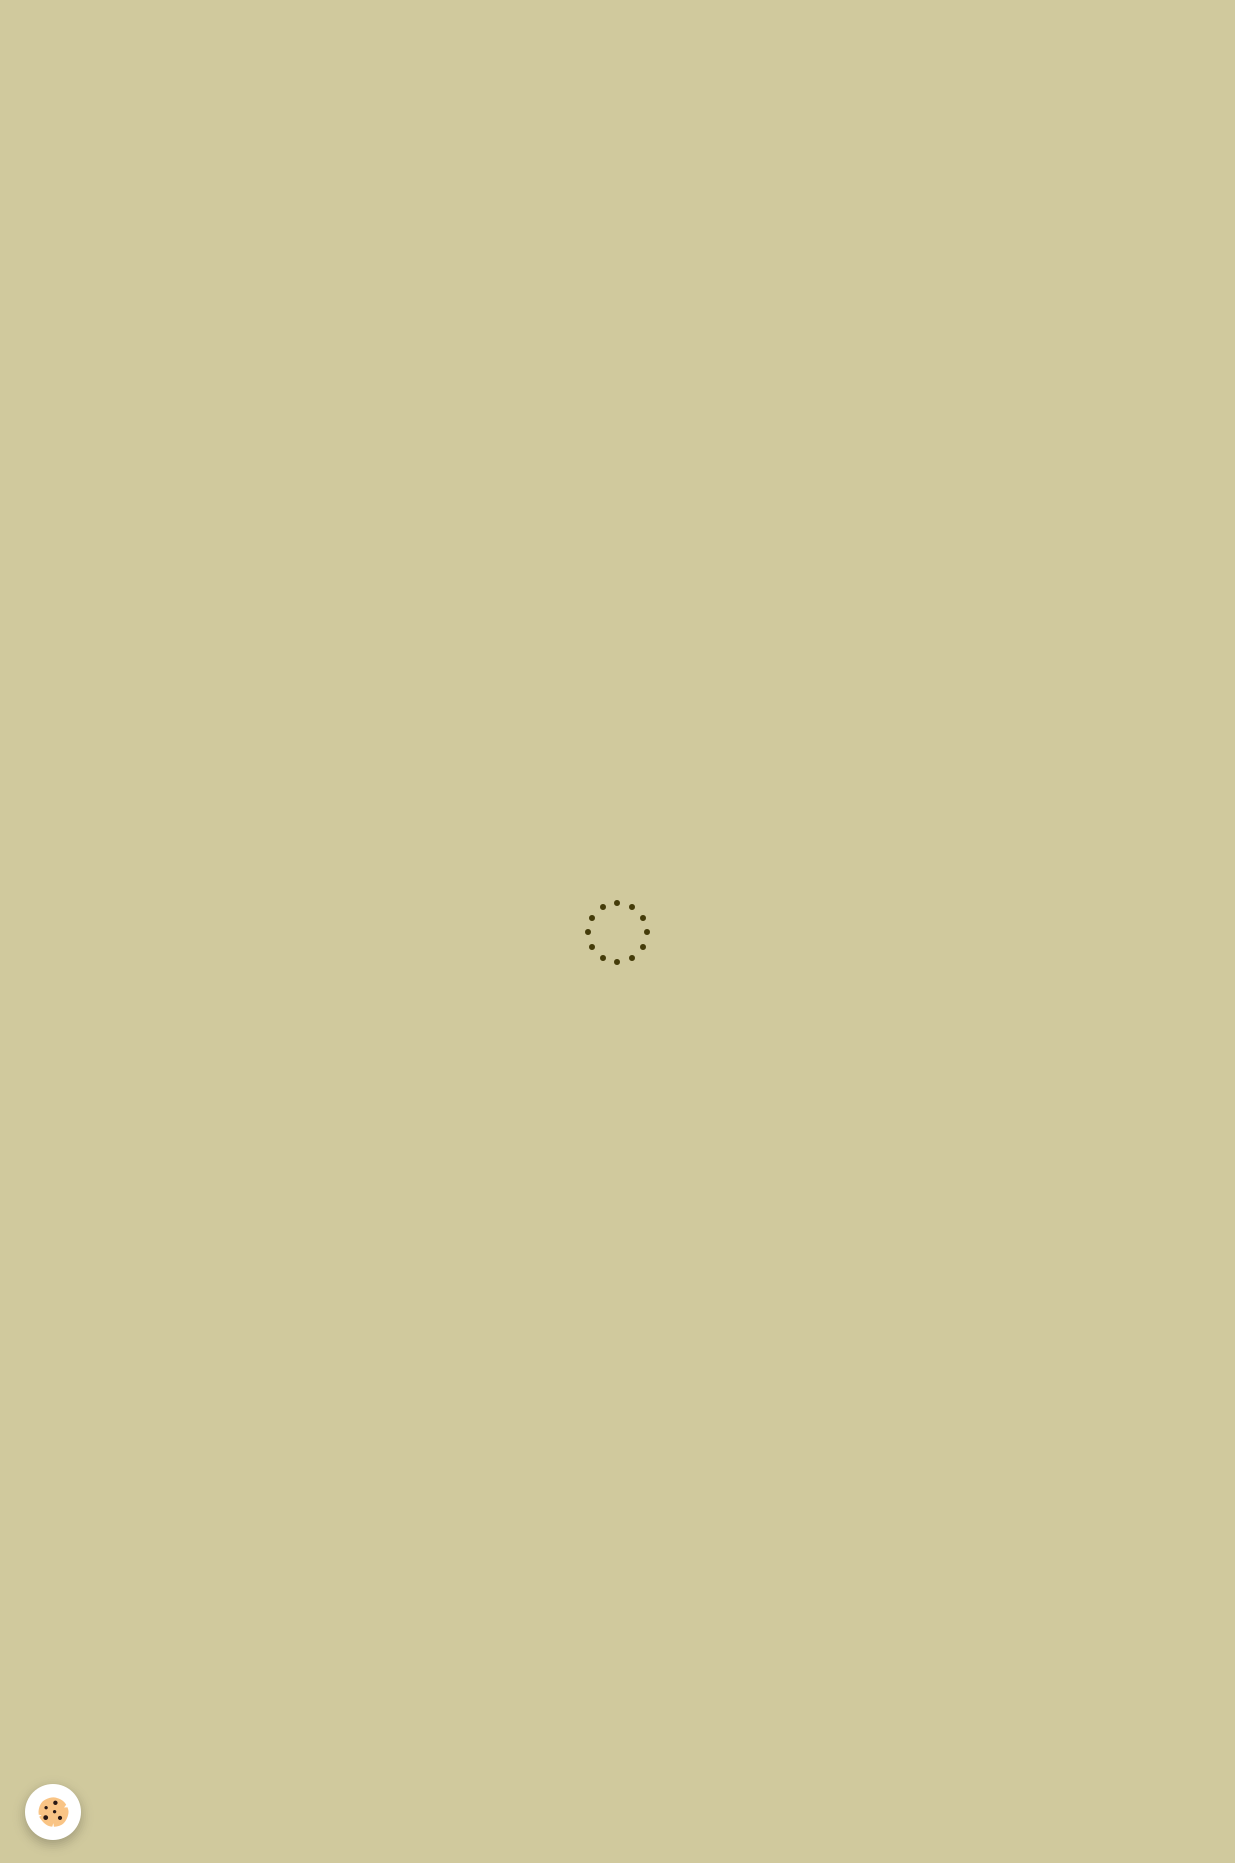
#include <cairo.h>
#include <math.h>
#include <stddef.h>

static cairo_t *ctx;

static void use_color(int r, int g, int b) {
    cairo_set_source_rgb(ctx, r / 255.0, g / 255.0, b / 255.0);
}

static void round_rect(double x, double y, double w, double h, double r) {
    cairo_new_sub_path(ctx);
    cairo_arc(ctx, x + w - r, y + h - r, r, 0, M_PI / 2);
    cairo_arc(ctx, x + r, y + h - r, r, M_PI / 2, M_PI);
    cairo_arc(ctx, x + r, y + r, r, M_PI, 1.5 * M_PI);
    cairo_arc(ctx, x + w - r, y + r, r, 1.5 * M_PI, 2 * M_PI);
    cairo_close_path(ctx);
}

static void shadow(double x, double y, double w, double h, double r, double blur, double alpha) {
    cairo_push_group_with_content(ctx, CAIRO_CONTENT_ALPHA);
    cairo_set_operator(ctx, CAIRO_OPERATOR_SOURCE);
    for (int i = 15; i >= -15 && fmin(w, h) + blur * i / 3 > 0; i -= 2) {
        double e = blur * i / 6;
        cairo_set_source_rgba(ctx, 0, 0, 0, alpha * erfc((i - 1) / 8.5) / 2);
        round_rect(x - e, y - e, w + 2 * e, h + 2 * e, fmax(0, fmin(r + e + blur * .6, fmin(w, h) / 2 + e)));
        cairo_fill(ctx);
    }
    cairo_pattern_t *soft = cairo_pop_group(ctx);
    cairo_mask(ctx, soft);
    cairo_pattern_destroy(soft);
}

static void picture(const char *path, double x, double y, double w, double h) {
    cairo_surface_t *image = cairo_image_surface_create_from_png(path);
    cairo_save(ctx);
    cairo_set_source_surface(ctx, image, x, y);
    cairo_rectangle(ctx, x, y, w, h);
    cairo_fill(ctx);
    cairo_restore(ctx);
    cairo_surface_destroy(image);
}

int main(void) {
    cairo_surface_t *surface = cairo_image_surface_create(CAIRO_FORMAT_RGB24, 1235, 1863);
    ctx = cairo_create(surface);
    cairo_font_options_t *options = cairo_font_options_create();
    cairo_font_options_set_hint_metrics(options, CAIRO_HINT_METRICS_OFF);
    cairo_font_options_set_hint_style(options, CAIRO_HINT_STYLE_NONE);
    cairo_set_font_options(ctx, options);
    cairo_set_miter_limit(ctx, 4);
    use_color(208, 201, 157);
    cairo_paint(ctx);
    use_color(68, 59, 9);
    cairo_arc(ctx, 617, 903, 3, 0, 2 * M_PI);
    cairo_fill(ctx);
    cairo_arc(ctx, 603, 907, 3, 0, 2 * M_PI);
    cairo_fill(ctx);
    cairo_arc(ctx, 632, 907, 3, 0, 2 * M_PI);
    cairo_fill(ctx);
    cairo_arc(ctx, 592, 918, 3, 0, 2 * M_PI);
    cairo_fill(ctx);
    cairo_arc(ctx, 643, 918, 3, 0, 2 * M_PI);
    cairo_fill(ctx);
    cairo_arc(ctx, 588, 932, 3, 0, 2 * M_PI);
    cairo_fill(ctx);
    cairo_arc(ctx, 647, 932, 3, 0, 2 * M_PI);
    cairo_fill(ctx);
    cairo_arc(ctx, 592, 947, 3, 0, 2 * M_PI);
    cairo_fill(ctx);
    cairo_arc(ctx, 643, 947, 3, 0, 2 * M_PI);
    cairo_fill(ctx);
    cairo_arc(ctx, 603, 958, 3, 0, 2 * M_PI);
    cairo_fill(ctx);
    cairo_arc(ctx, 632, 958, 3, 0, 2 * M_PI);
    cairo_fill(ctx);
    cairo_arc(ctx, 617, 962, 3, 0, 2 * M_PI);
    cairo_fill(ctx);
    use_color(0, 0, 0);
    shadow(25, 1788, 56, 56, 28, 6, 0.24);
    use_color(255, 255, 255);
    cairo_arc(ctx, 53, 1812, 28, 0, 2 * M_PI);
    cairo_fill(ctx);
    picture("img1.png", 38, 1797, 31, 30);
    cairo_surface_write_to_png(surface, "result.png");
    cairo_font_options_destroy(options);
    cairo_destroy(ctx);
    cairo_surface_destroy(surface);
    return 0;
}
